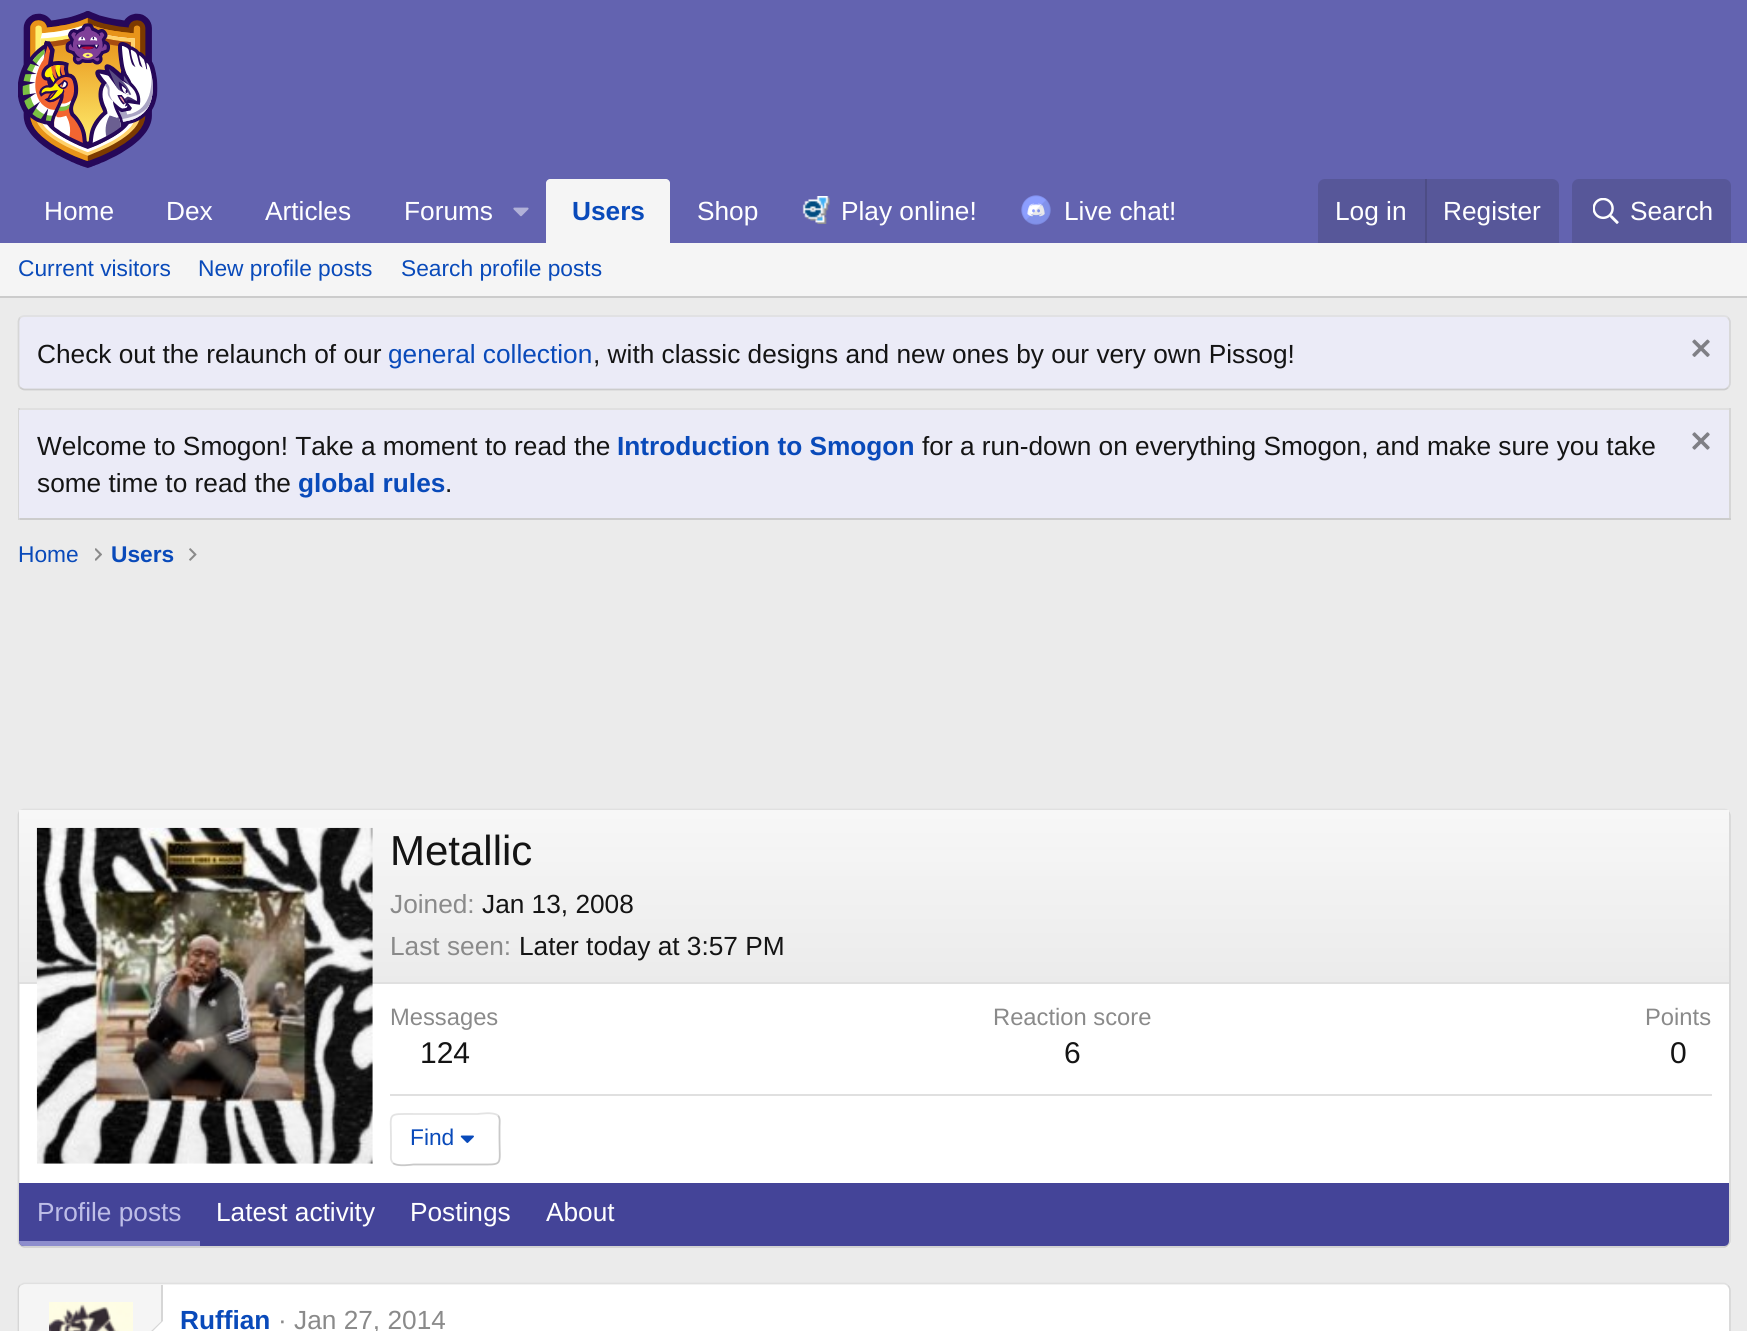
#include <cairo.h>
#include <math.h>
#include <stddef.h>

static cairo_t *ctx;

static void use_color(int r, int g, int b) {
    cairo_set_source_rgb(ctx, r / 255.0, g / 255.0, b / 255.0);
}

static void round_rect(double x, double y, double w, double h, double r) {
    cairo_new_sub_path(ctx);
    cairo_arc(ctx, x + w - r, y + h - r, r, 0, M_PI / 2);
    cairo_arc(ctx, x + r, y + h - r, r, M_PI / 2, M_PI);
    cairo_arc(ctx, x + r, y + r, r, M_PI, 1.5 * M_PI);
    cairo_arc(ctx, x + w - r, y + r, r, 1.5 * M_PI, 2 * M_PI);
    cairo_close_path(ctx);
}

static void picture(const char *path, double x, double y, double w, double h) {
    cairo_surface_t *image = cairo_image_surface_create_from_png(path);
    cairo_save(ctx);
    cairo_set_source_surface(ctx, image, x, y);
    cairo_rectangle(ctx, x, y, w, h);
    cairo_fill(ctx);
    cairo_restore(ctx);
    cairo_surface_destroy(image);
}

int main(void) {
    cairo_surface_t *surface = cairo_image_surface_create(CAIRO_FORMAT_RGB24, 1747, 1331);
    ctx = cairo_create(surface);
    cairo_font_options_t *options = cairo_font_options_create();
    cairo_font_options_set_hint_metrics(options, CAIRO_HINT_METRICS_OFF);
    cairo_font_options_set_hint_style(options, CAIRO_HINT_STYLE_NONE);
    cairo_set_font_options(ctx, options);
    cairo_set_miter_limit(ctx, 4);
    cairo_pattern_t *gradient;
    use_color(235, 235, 235);
    cairo_paint(ctx);
    use_color(99, 99, 176);
    cairo_rectangle(ctx, 0, 0, 1747, 243);
    cairo_fill(ctx);
    picture("img1.png", 18, 11, 140, 157);
    cairo_select_font_face(ctx, "Liberation Sans", CAIRO_FONT_SLANT_NORMAL, CAIRO_FONT_WEIGHT_NORMAL);
    cairo_set_font_size(ctx, 26.25);
    use_color(255, 255, 255);
    cairo_move_to(ctx, 44, 220);
    cairo_show_text(ctx, "Home");
    cairo_move_to(ctx, 166, 220);
    cairo_show_text(ctx, "Dex");
    cairo_move_to(ctx, 265, 220);
    cairo_show_text(ctx, "Articles");
    cairo_move_to(ctx, 404, 220);
    cairo_show_text(ctx, "Forums");
    picture("img2.png", 513, 207, 16, 10);
    use_color(245, 245, 245);
    cairo_new_path(ctx);
    cairo_move_to(ctx, 550, 179);
    cairo_line_to(ctx, 666, 179);
    cairo_curve_to(ctx, 668, 179, 670, 181, 670, 183);
    cairo_line_to(ctx, 670, 243);
    cairo_line_to(ctx, 546, 243);
    cairo_line_to(ctx, 546, 183);
    cairo_curve_to(ctx, 546, 181, 548, 179, 550, 179);
    cairo_close_path(ctx);
    cairo_fill(ctx);
    cairo_select_font_face(ctx, "Liberation Sans", CAIRO_FONT_SLANT_NORMAL, CAIRO_FONT_WEIGHT_BOLD);
    use_color(9, 74, 186);
    cairo_move_to(ctx, 572, 220);
    cairo_show_text(ctx, "Users");
    cairo_select_font_face(ctx, "Liberation Sans", CAIRO_FONT_SLANT_NORMAL, CAIRO_FONT_WEIGHT_NORMAL);
    use_color(255, 255, 255);
    cairo_move_to(ctx, 697, 220);
    cairo_show_text(ctx, "Shop");
    picture("img3.png", 802, 196, 28, 28);
    cairo_move_to(ctx, 841, 220);
    cairo_show_text(ctx, "Play online!");
    picture("img4.png", 1021, 195, 30, 30);
    cairo_move_to(ctx, 1064, 220);
    cairo_show_text(ctx, "Live chat!");
    use_color(87, 87, 153);
    cairo_new_path(ctx);
    cairo_move_to(ctx, 1325, 179);
    cairo_line_to(ctx, 1552, 179);
    cairo_curve_to(ctx, 1556, 179, 1559, 182, 1559, 186);
    cairo_line_to(ctx, 1559, 243);
    cairo_line_to(ctx, 1318, 243);
    cairo_line_to(ctx, 1318, 186);
    cairo_curve_to(ctx, 1318, 182, 1321, 179, 1325, 179);
    cairo_close_path(ctx);
    cairo_fill(ctx);
    use_color(255, 255, 255);
    cairo_move_to(ctx, 1335, 220);
    cairo_show_text(ctx, "Log in");
    use_color(77, 77, 133);
    cairo_rectangle(ctx, 1425, 179, 2, 64);
    cairo_fill(ctx);
    use_color(255, 255, 255);
    cairo_move_to(ctx, 1443, 220);
    cairo_show_text(ctx, "Register");
    use_color(87, 87, 153);
    cairo_new_path(ctx);
    cairo_move_to(ctx, 1579, 179);
    cairo_line_to(ctx, 1724, 179);
    cairo_curve_to(ctx, 1728, 179, 1731, 182, 1731, 186);
    cairo_line_to(ctx, 1731, 243);
    cairo_line_to(ctx, 1572, 243);
    cairo_line_to(ctx, 1572, 186);
    cairo_curve_to(ctx, 1572, 182, 1575, 179, 1579, 179);
    cairo_close_path(ctx);
    cairo_fill(ctx);
    picture("img5.png", 1593, 198, 26, 26);
    use_color(255, 255, 255);
    cairo_move_to(ctx, 1630, 220);
    cairo_show_text(ctx, "Search");
    use_color(245, 245, 245);
    cairo_rectangle(ctx, 0, 243, 1747, 53);
    cairo_fill(ctx);
    use_color(204, 204, 204);
    cairo_rectangle(ctx, 0, 296, 1747, 2);
    cairo_fill(ctx);
    cairo_set_font_size(ctx, 22.75);
    use_color(9, 74, 186);
    cairo_move_to(ctx, 18, 276);
    cairo_show_text(ctx, "Current visitors");
    cairo_move_to(ctx, 198, 276);
    cairo_show_text(ctx, "New profile posts");
    cairo_move_to(ctx, 401, 276);
    cairo_show_text(ctx, "Search profile posts");
    use_color(235, 235, 247);
    round_rect(18, 315, 1713, 75, 7);
    cairo_fill(ctx);
    cairo_new_path(ctx);
    cairo_move_to(ctx, 20, 317.5);
    cairo_curve_to(ctx, 21.5, 316.5, 23, 316, 24.5, 316);
    cairo_line_to(ctx, 1724, 316);
    cairo_curve_to(ctx, 1725.5, 316, 1727, 316.5, 1728, 317.5);
    use_color(224, 224, 224);
    cairo_set_line_width(ctx, 1.8);
    cairo_stroke(ctx);
    cairo_new_path(ctx);
    cairo_move_to(ctx, 1728, 317.5);
    cairo_curve_to(ctx, 1729, 319, 1730, 320.5, 1730, 322);
    cairo_line_to(ctx, 1730, 383);
    cairo_curve_to(ctx, 1730, 385, 1729, 386.5, 1728, 387.5);
    use_color(214, 214, 214);
    cairo_stroke(ctx);
    cairo_new_path(ctx);
    cairo_move_to(ctx, 1728, 387.5);
    cairo_curve_to(ctx, 1727, 388.5, 1725.5, 389.5, 1724, 389.5);
    cairo_line_to(ctx, 24.5, 389.5);
    cairo_curve_to(ctx, 23, 389.5, 21.5, 388.5, 20, 387.5);
    use_color(204, 204, 204);
    cairo_stroke(ctx);
    cairo_new_path(ctx);
    cairo_move_to(ctx, 20, 387.5);
    cairo_curve_to(ctx, 19, 386.5, 18.5, 385, 18.5, 383);
    cairo_line_to(ctx, 18.5, 322);
    cairo_curve_to(ctx, 18.5, 320.5, 19, 319, 20, 317.5);
    use_color(214, 214, 214);
    cairo_stroke(ctx);
    cairo_set_font_size(ctx, 26.25);
    use_color(20, 20, 20);
    cairo_move_to(ctx, 37, 363);
    cairo_show_text(ctx, "Check out the relaunch of our");
    use_color(9, 74, 186);
    cairo_move_to(ctx, 388, 363);
    cairo_show_text(ctx, "general collection");
    use_color(20, 20, 20);
    cairo_move_to(ctx, 593, 363);
    cairo_show_text(ctx, ", with classic designs and new ones by our very own Pissog!");
    picture("img6.png", 1692, 339, 18, 18);
    use_color(224, 224, 224);
    cairo_rectangle(ctx, 18, 408, 1713, 2);
    cairo_fill(ctx);
    use_color(214, 214, 214);
    cairo_rectangle(ctx, 1729, 408, 2, 112);
    cairo_fill(ctx);
    use_color(204, 204, 204);
    cairo_rectangle(ctx, 18, 518, 1713, 2);
    cairo_fill(ctx);
    use_color(214, 214, 214);
    cairo_rectangle(ctx, 18, 408, 2, 112);
    cairo_fill(ctx);
    use_color(235, 235, 247);
    cairo_rectangle(ctx, 19, 410, 1710, 108);
    cairo_fill(ctx);
    use_color(20, 20, 20);
    cairo_move_to(ctx, 37, 455);
    cairo_show_text(ctx, "Welcome to Smogon! Take a moment to read the");
    cairo_select_font_face(ctx, "Liberation Sans", CAIRO_FONT_SLANT_NORMAL, CAIRO_FONT_WEIGHT_BOLD);
    use_color(9, 74, 186);
    cairo_move_to(ctx, 617, 455);
    cairo_show_text(ctx, "Introduction to Smogon");
    cairo_select_font_face(ctx, "Liberation Sans", CAIRO_FONT_SLANT_NORMAL, CAIRO_FONT_WEIGHT_NORMAL);
    use_color(20, 20, 20);
    cairo_move_to(ctx, 922, 455);
    cairo_show_text(ctx, "for a run-down on everything Smogon, and make sure you take");
    picture("img7.png", 1692, 432, 18, 18);
    cairo_move_to(ctx, 37, 492);
    cairo_show_text(ctx, "some time to read the");
    cairo_select_font_face(ctx, "Liberation Sans", CAIRO_FONT_SLANT_NORMAL, CAIRO_FONT_WEIGHT_BOLD);
    use_color(9, 74, 186);
    cairo_move_to(ctx, 298, 492);
    cairo_show_text(ctx, "global rules");
    cairo_select_font_face(ctx, "Liberation Sans", CAIRO_FONT_SLANT_NORMAL, CAIRO_FONT_WEIGHT_NORMAL);
    use_color(20, 20, 20);
    cairo_move_to(ctx, 445, 492);
    cairo_show_text(ctx, ".");
    cairo_set_font_size(ctx, 22.75);
    use_color(9, 74, 186);
    cairo_move_to(ctx, 18, 562);
    cairo_show_text(ctx, "Home");
    picture("img8.png", 95, 548, 7, 13);
    cairo_select_font_face(ctx, "Liberation Sans", CAIRO_FONT_SLANT_NORMAL, CAIRO_FONT_WEIGHT_BOLD);
    cairo_move_to(ctx, 111, 562);
    cairo_show_text(ctx, "Users");
    picture("img9.png", 189, 548, 8, 13);
    use_color(255, 255, 255);
    round_rect(18, 809, 1713, 439, 7);
    cairo_fill(ctx);
    cairo_new_path(ctx);
    cairo_move_to(ctx, 20, 811);
    cairo_curve_to(ctx, 21.5, 810, 23, 809.5, 24.5, 809.5);
    cairo_line_to(ctx, 1724, 809.5);
    cairo_curve_to(ctx, 1725.5, 809.5, 1727, 810, 1728, 811);
    use_color(224, 224, 224);
    cairo_stroke(ctx);
    cairo_new_path(ctx);
    cairo_move_to(ctx, 1728, 811);
    cairo_curve_to(ctx, 1729, 812.5, 1730, 814, 1730, 815.5);
    cairo_line_to(ctx, 1730, 1241);
    cairo_curve_to(ctx, 1730, 1242.5, 1729, 1244, 1728, 1245);
    use_color(214, 214, 214);
    cairo_stroke(ctx);
    cairo_new_path(ctx);
    cairo_move_to(ctx, 1728, 1245);
    cairo_curve_to(ctx, 1727, 1246, 1725.5, 1247, 1724, 1247);
    cairo_line_to(ctx, 24.5, 1247);
    cairo_curve_to(ctx, 23, 1247, 21.5, 1246, 20, 1245);
    use_color(204, 204, 204);
    cairo_stroke(ctx);
    cairo_new_path(ctx);
    cairo_move_to(ctx, 20, 1245);
    cairo_curve_to(ctx, 19, 1244, 18.5, 1242.5, 18.5, 1241);
    cairo_line_to(ctx, 18.5, 815.5);
    cairo_curve_to(ctx, 18.5, 814, 19, 812.5, 20, 811);
    use_color(214, 214, 214);
    cairo_stroke(ctx);
    gradient = cairo_pattern_create_linear(874, 982, 874, 810);
    cairo_pattern_add_color_stop_rgba(gradient, 0, 0.922, 0.922, 0.922, 1);
    cairo_pattern_add_color_stop_rgba(gradient, 1, 0.969, 0.969, 0.969, 1);
    cairo_set_source(ctx, gradient);
    cairo_pattern_destroy(gradient);
    cairo_rectangle(ctx, 19, 810, 1710, 172);
    cairo_fill(ctx);
    use_color(224, 224, 224);
    cairo_rectangle(ctx, 19, 982, 1710, 2);
    cairo_fill(ctx);
    picture("img10.png", 36, 827, 337, 337);
    cairo_select_font_face(ctx, "Liberation Sans", CAIRO_FONT_SLANT_NORMAL, CAIRO_FONT_WEIGHT_NORMAL);
    cairo_set_font_size(ctx, 42);
    use_color(20, 20, 20);
    cairo_move_to(ctx, 390, 865);
    cairo_show_text(ctx, "Metallic");
    cairo_set_font_size(ctx, 26.25);
    use_color(138, 138, 138);
    cairo_move_to(ctx, 390, 913);
    cairo_show_text(ctx, "Joined:");
    use_color(20, 20, 20);
    cairo_move_to(ctx, 482, 913);
    cairo_show_text(ctx, "Jan 13, 2008");
    use_color(138, 138, 138);
    cairo_move_to(ctx, 390, 955);
    cairo_show_text(ctx, "Last seen:");
    use_color(20, 20, 20);
    cairo_move_to(ctx, 519, 955);
    cairo_show_text(ctx, "Later today at 3:57 PM");
    cairo_set_font_size(ctx, 23.75);
    use_color(138, 138, 138);
    cairo_move_to(ctx, 390, 1025);
    cairo_show_text(ctx, "Messages");
    cairo_set_font_size(ctx, 30);
    use_color(20, 20, 20);
    cairo_move_to(ctx, 420, 1063);
    cairo_show_text(ctx, "124");
    cairo_set_font_size(ctx, 23.75);
    use_color(138, 138, 138);
    cairo_move_to(ctx, 993, 1025);
    cairo_show_text(ctx, "Reaction score");
    cairo_set_font_size(ctx, 30);
    use_color(20, 20, 20);
    cairo_move_to(ctx, 1064, 1063);
    cairo_show_text(ctx, "6");
    cairo_set_font_size(ctx, 23.75);
    use_color(138, 138, 138);
    cairo_move_to(ctx, 1645, 1025);
    cairo_show_text(ctx, "Points");
    cairo_set_font_size(ctx, 30);
    use_color(20, 20, 20);
    cairo_move_to(ctx, 1670, 1063);
    cairo_show_text(ctx, "0");
    use_color(224, 224, 224);
    cairo_rectangle(ctx, 390, 1094, 1322, 2);
    cairo_fill(ctx);
    cairo_new_path(ctx);
    cairo_move_to(ctx, 498, 1115.5);
    cairo_curve_to(ctx, 500.5, 1118.5, 499.5, 1123, 499.5, 1126.5);
    cairo_line_to(ctx, 499.5, 1139);
    cairo_curve_to(ctx, 499.5, 1166.5, 504, 1164.5, 477.5, 1164.5);
    cairo_line_to(ctx, 413.5, 1164.5);
    cairo_curve_to(ctx, 412.5, 1164.5, 397.5, 1167, 393, 1163);
    use_color(201, 201, 201);
    cairo_stroke(ctx);
    cairo_new_path(ctx);
    cairo_move_to(ctx, 393, 1163);
    cairo_curve_to(ctx, 390, 1160, 391, 1155.5, 391, 1152);
    cairo_line_to(ctx, 391, 1139);
    cairo_curve_to(ctx, 391, 1112, 386.5, 1114, 413.5, 1114);
    cairo_line_to(ctx, 477.5, 1114);
    cairo_curve_to(ctx, 478.5, 1114, 493.5, 1111.5, 498, 1115.5);
    use_color(227, 227, 227);
    cairo_stroke(ctx);
    cairo_set_font_size(ctx, 22.75);
    use_color(9, 74, 186);
    cairo_move_to(ctx, 410, 1145);
    cairo_show_text(ctx, "Find");
    picture("img11.png", 460, 1135, 14, 8);
    use_color(68, 68, 152);
    cairo_new_path(ctx);
    cairo_move_to(ctx, 19, 1183);
    cairo_line_to(ctx, 1729, 1183);
    cairo_line_to(ctx, 1729, 1241);
    cairo_curve_to(ctx, 1729, 1244, 1727, 1246, 1724, 1246);
    cairo_line_to(ctx, 24, 1246);
    cairo_curve_to(ctx, 21, 1246, 19, 1244, 19, 1241);
    cairo_close_path(ctx);
    cairo_fill(ctx);
    use_color(141, 141, 205);
    cairo_new_path(ctx);
    cairo_move_to(ctx, 19, 1241);
    cairo_line_to(ctx, 200, 1241);
    cairo_line_to(ctx, 200, 1246);
    cairo_line_to(ctx, 24, 1246);
    cairo_curve_to(ctx, 21, 1246, 19, 1244, 19, 1241);
    cairo_close_path(ctx);
    cairo_fill(ctx);
    cairo_set_font_size(ctx, 26.25);
    use_color(190, 190, 231);
    cairo_move_to(ctx, 37, 1221);
    cairo_show_text(ctx, "Profile posts");
    use_color(255, 255, 255);
    cairo_move_to(ctx, 216, 1221);
    cairo_show_text(ctx, "Latest activity");
    cairo_move_to(ctx, 410, 1221);
    cairo_show_text(ctx, "Postings");
    cairo_move_to(ctx, 546, 1221);
    cairo_show_text(ctx, "About");
    round_rect(18, 1283, 1713, 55, 7);
    cairo_fill(ctx);
    cairo_new_path(ctx);
    cairo_move_to(ctx, 20, 1285.5);
    cairo_curve_to(ctx, 21.5, 1284.5, 23, 1283.5, 24.5, 1283.5);
    cairo_line_to(ctx, 1724, 1283.5);
    cairo_curve_to(ctx, 1725.5, 1283.5, 1727, 1284.5, 1728, 1285.5);
    use_color(224, 224, 224);
    cairo_stroke(ctx);
    cairo_new_path(ctx);
    cairo_move_to(ctx, 1728, 1285.5);
    cairo_curve_to(ctx, 1729, 1286.5, 1730, 1288, 1730, 1290);
    cairo_line_to(ctx, 1730, 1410.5);
    cairo_curve_to(ctx, 1730, 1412, 1729, 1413.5, 1728, 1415);
    use_color(214, 214, 214);
    cairo_stroke(ctx);
    cairo_new_path(ctx);
    cairo_move_to(ctx, 20, 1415);
    cairo_curve_to(ctx, 19, 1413.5, 18.5, 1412, 18.5, 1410.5);
    cairo_line_to(ctx, 18.5, 1290);
    cairo_curve_to(ctx, 18.5, 1288, 19, 1286.5, 20, 1285.5);
    cairo_stroke(ctx);
    use_color(245, 245, 245);
    cairo_new_path(ctx);
    cairo_move_to(ctx, 24, 1285);
    cairo_line_to(ctx, 163, 1285);
    cairo_line_to(ctx, 163, 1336);
    cairo_line_to(ctx, 24, 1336);
    cairo_curve_to(ctx, 21, 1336, 19, 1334, 19, 1331);
    cairo_line_to(ctx, 19, 1290);
    cairo_curve_to(ctx, 19, 1287, 21, 1285, 24, 1285);
    cairo_close_path(ctx);
    cairo_fill(ctx);
    use_color(214, 214, 214);
    cairo_rectangle(ctx, 161, 1285, 2, 37);
    cairo_fill(ctx);
    picture("img12.png", 49, 1302, 84, 29);
    cairo_new_path(ctx);
    cairo_move_to(ctx, 163, 1319.5);
    cairo_line_to(ctx, 163, 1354.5);
    cairo_line_to(ctx, 145, 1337);
    cairo_close_path(ctx);
    cairo_fill(ctx);
    use_color(255, 255, 255);
    cairo_new_path(ctx);
    cairo_move_to(ctx, 163, 1321);
    cairo_line_to(ctx, 163, 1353);
    cairo_line_to(ctx, 147, 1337);
    cairo_close_path(ctx);
    cairo_fill(ctx);
    cairo_select_font_face(ctx, "Liberation Sans", CAIRO_FONT_SLANT_NORMAL, CAIRO_FONT_WEIGHT_BOLD);
    use_color(9, 74, 186);
    cairo_move_to(ctx, 180, 1329);
    cairo_show_text(ctx, "Ruffian");
    cairo_select_font_face(ctx, "Liberation Sans", CAIRO_FONT_SLANT_NORMAL, CAIRO_FONT_WEIGHT_NORMAL);
    use_color(138, 138, 138);
    cairo_move_to(ctx, 278, 1329);
    cairo_show_text(ctx, "· Jan 27, 2014");
    cairo_surface_write_to_png(surface, "result.png");
    cairo_font_options_destroy(options);
    cairo_destroy(ctx);
    cairo_surface_destroy(surface);
    return 0;
}
